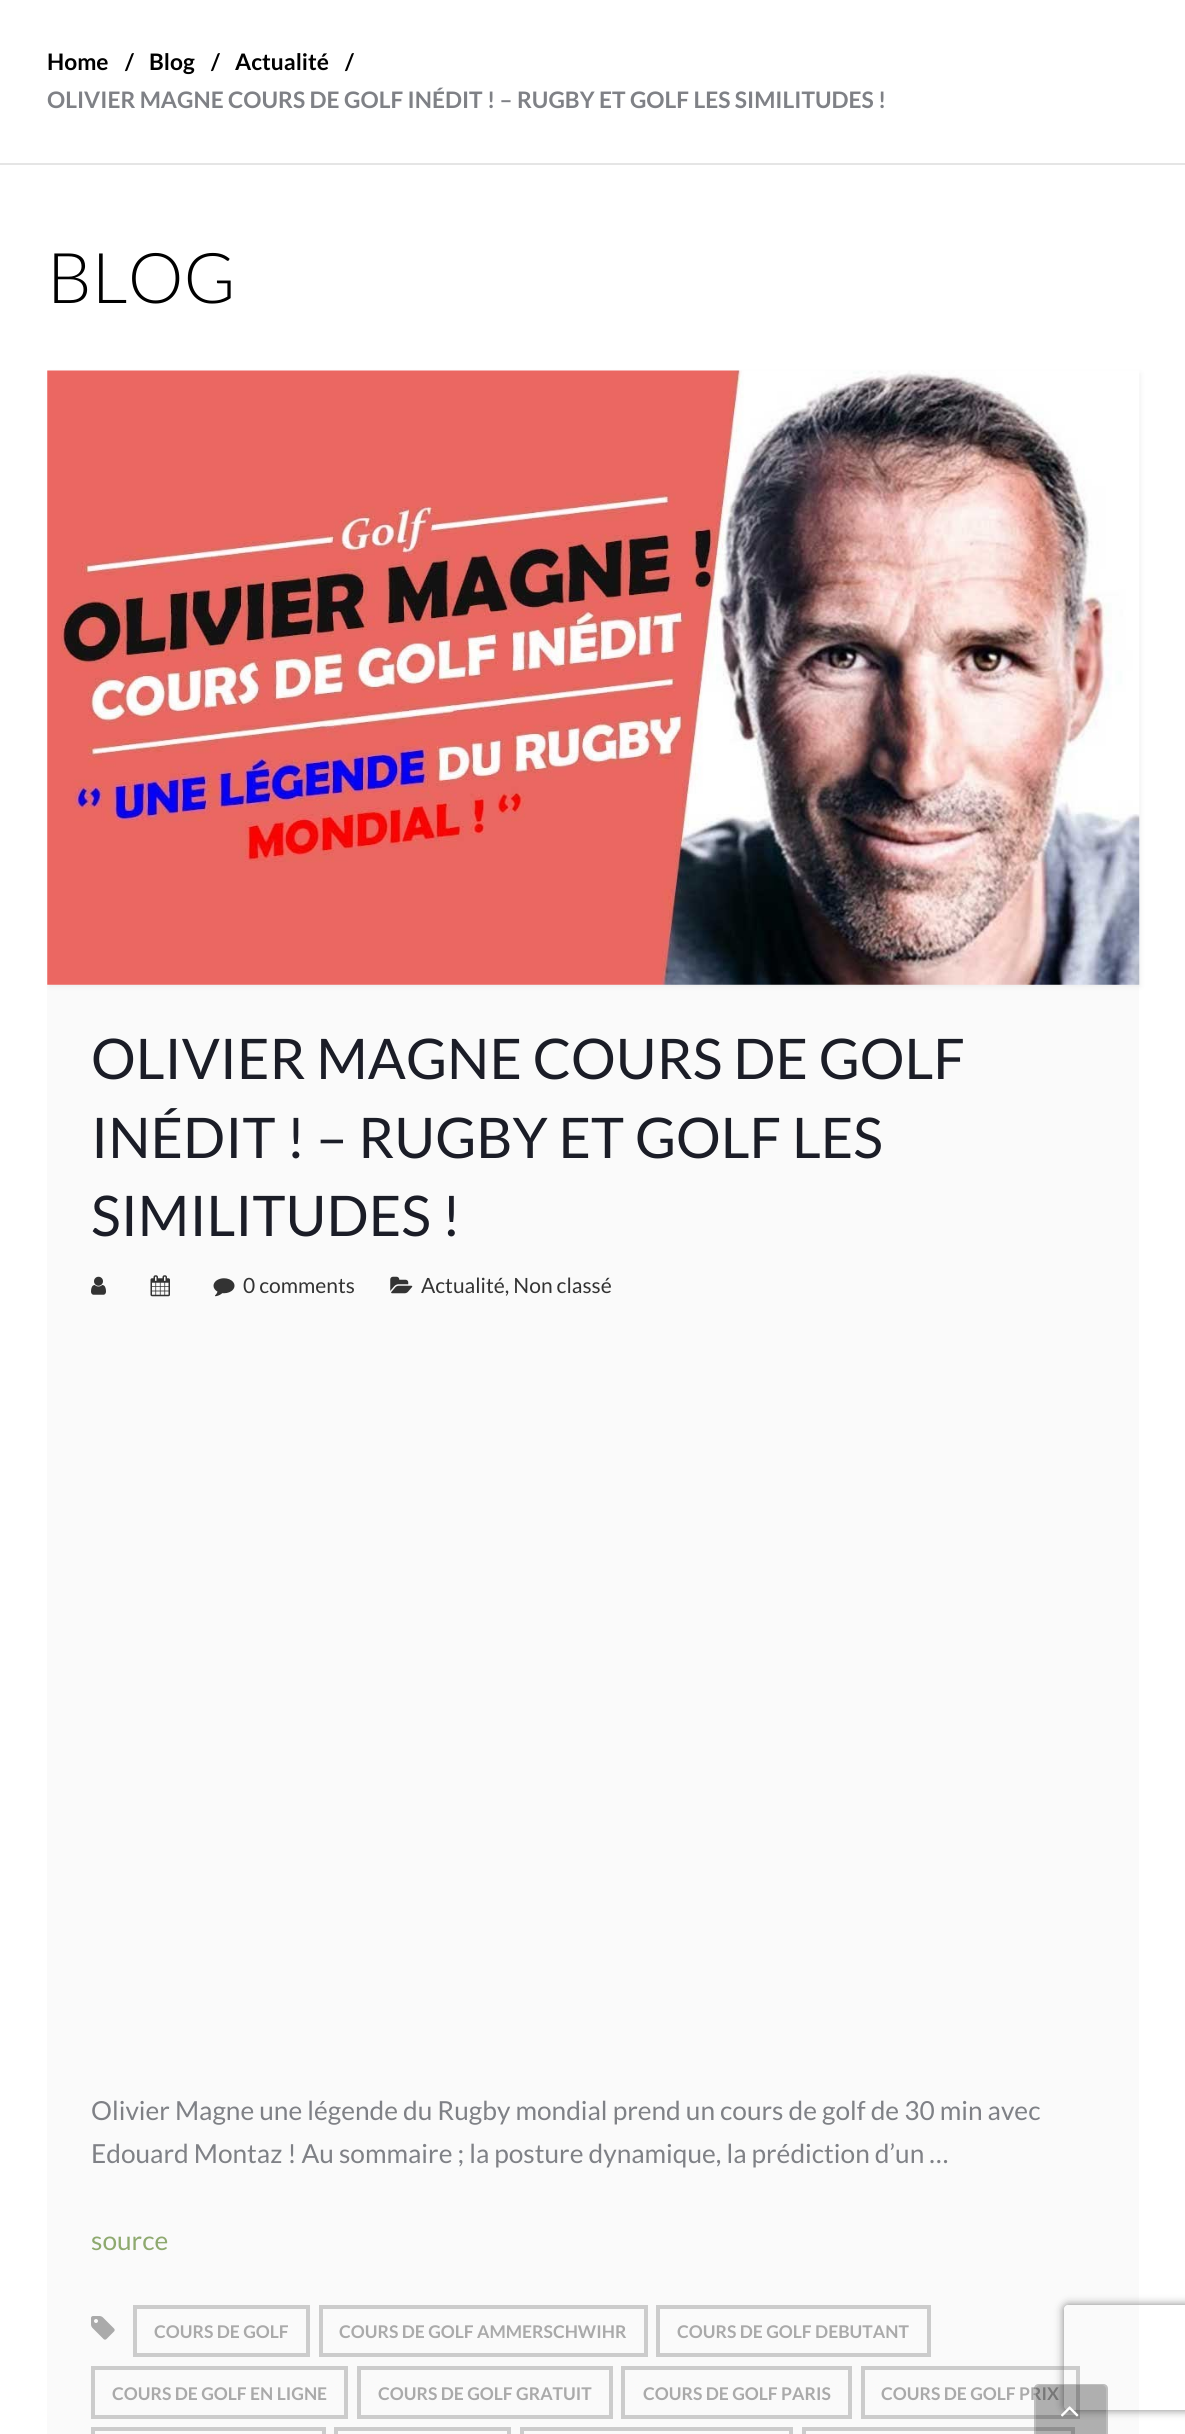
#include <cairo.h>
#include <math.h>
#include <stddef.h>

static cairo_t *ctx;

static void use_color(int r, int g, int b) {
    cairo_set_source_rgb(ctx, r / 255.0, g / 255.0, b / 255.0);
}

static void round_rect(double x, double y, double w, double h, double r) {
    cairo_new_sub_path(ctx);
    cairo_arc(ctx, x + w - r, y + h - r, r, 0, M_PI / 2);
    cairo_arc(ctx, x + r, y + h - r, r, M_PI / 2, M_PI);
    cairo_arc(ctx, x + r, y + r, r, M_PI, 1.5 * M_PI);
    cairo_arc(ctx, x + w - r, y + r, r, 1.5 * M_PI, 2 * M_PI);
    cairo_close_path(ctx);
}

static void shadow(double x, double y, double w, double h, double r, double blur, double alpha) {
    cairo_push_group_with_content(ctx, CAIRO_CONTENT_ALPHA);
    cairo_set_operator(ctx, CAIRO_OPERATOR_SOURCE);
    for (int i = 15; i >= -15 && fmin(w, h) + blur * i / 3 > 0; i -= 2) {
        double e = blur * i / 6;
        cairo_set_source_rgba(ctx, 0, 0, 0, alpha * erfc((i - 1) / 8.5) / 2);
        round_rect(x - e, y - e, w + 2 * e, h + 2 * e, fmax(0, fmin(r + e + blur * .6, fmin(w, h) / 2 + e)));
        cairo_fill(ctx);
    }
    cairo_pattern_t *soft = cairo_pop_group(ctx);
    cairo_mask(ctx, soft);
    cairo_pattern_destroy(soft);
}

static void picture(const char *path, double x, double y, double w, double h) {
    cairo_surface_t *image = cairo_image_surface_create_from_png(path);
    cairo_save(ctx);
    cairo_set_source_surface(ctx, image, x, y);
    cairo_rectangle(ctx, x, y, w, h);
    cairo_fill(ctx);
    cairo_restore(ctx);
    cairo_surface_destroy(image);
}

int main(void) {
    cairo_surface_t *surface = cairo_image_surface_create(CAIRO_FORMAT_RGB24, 1185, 2434);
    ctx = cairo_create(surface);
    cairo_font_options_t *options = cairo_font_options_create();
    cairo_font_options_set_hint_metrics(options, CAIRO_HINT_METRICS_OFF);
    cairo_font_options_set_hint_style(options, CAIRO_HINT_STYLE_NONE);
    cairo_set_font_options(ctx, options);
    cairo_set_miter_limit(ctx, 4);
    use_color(255, 255, 255);
    cairo_paint(ctx);
    use_color(229, 229, 229);
    cairo_rectangle(ctx, 0, 163, 1185, 2);
    cairo_fill(ctx);
    cairo_select_font_face(ctx, "Lato", CAIRO_FONT_SLANT_NORMAL, CAIRO_FONT_WEIGHT_BOLD);
    cairo_set_font_size(ctx, 22.75);
    use_color(0, 0, 0);
    cairo_move_to(ctx, 47, 70);
    cairo_show_text(ctx, "Home");
    cairo_move_to(ctx, 125, 70);
    cairo_show_text(ctx, "/");
    cairo_move_to(ctx, 149, 70);
    cairo_show_text(ctx, "Blog");
    cairo_move_to(ctx, 211, 70);
    cairo_show_text(ctx, "/");
    cairo_move_to(ctx, 235, 70);
    cairo_show_text(ctx, "Actualité");
    cairo_move_to(ctx, 345, 70);
    cairo_show_text(ctx, "/");
    use_color(127, 129, 134);
    cairo_move_to(ctx, 47, 108);
    cairo_show_text(ctx, "OLIVIER MAGNE COURS DE GOLF INÉDIT ! – RUGBY ET GOLF LES SIMILITUDES !");
    cairo_select_font_face(ctx, "Lato Light", CAIRO_FONT_SLANT_NORMAL, CAIRO_FONT_WEIGHT_NORMAL);
    cairo_set_font_size(ctx, 70);
    use_color(0, 0, 0);
    cairo_move_to(ctx, 47, 303);
    cairo_show_text(ctx, "BLOG");
    use_color(250, 250, 250);
    cairo_rectangle(ctx, 47, 371, 1092, 2063);
    cairo_fill(ctx);
    use_color(0, 0, 0);
    shadow(49, 373, 1092, 614, 0, 2.5, 0.05);
    picture("img1.png", 47, 370, 1093, 615);
    cairo_select_font_face(ctx, "Lato", CAIRO_FONT_SLANT_NORMAL, CAIRO_FONT_WEIGHT_NORMAL);
    cairo_set_font_size(ctx, 56);
    use_color(27, 29, 39);
    cairo_move_to(ctx, 91, 1079);
    cairo_show_text(ctx, "OLIVIER MAGNE COURS DE GOLF");
    cairo_move_to(ctx, 91, 1158);
    cairo_show_text(ctx, "INÉDIT ! – RUGBY ET GOLF LES");
    cairo_move_to(ctx, 91, 1236);
    cairo_show_text(ctx, "SIMILITUDES !");
    picture("img2.png", 91, 1276, 15, 19);
    picture("img3.png", 150, 1275, 20, 22);
    picture("img4.png", 213, 1278, 22, 19);
    cairo_set_font_size(ctx, 21);
    use_color(51, 51, 51);
    cairo_move_to(ctx, 243, 1293);
    cairo_show_text(ctx, "0 comments");
    picture("img5.png", 390, 1276, 23, 18);
    cairo_move_to(ctx, 421, 1293);
    cairo_show_text(ctx, "Actualité, Non classé");
    cairo_set_font_size(ctx, 26.25);
    use_color(127, 129, 134);
    cairo_move_to(ctx, 91, 2120);
    cairo_show_text(ctx, "Olivier Magne une légende du Rugby mondial prend un cours de golf de 30 min avec");
    cairo_move_to(ctx, 91, 2163);
    cairo_show_text(ctx, "Edouard Montaz ! Au sommaire ; la posture dynamique, la prédiction d’un …");
    use_color(142, 169, 111);
    cairo_move_to(ctx, 91, 2250);
    cairo_show_text(ctx, "source");
    picture("img6.png", 91, 2316, 24, 24);
    cairo_rectangle(ctx, 135, 2307, 173, 48);
    use_color(204, 204, 204);
    cairo_set_line_width(ctx, 4);
    cairo_stroke(ctx);
    cairo_select_font_face(ctx, "Lato", CAIRO_FONT_SLANT_NORMAL, CAIRO_FONT_WEIGHT_BOLD);
    cairo_set_font_size(ctx, 17.5);
    use_color(170, 170, 170);
    cairo_move_to(ctx, 154, 2338);
    cairo_show_text(ctx, "COURS DE GOLF");
    cairo_rectangle(ctx, 321, 2307, 325, 48);
    use_color(204, 204, 204);
    cairo_stroke(ctx);
    use_color(170, 170, 170);
    cairo_move_to(ctx, 339, 2338);
    cairo_show_text(ctx, "COURS DE GOLF AMMERSCHWIHR");
    cairo_rectangle(ctx, 658, 2307, 271, 48);
    use_color(204, 204, 204);
    cairo_stroke(ctx);
    use_color(170, 170, 170);
    cairo_move_to(ctx, 677, 2338);
    cairo_show_text(ctx, "COURS DE GOLF DEBUTANT");
    cairo_rectangle(ctx, 93, 2368, 253, 49);
    use_color(204, 204, 204);
    cairo_stroke(ctx);
    use_color(170, 170, 170);
    cairo_move_to(ctx, 112, 2400);
    cairo_show_text(ctx, "COURS DE GOLF EN LIGNE");
    cairo_rectangle(ctx, 359, 2368, 252, 49);
    use_color(204, 204, 204);
    cairo_stroke(ctx);
    use_color(170, 170, 170);
    cairo_move_to(ctx, 378, 2400);
    cairo_show_text(ctx, "COURS DE GOLF GRATUIT");
    cairo_rectangle(ctx, 623, 2368, 227, 49);
    use_color(204, 204, 204);
    cairo_stroke(ctx);
    use_color(170, 170, 170);
    cairo_move_to(ctx, 643, 2400);
    cairo_show_text(ctx, "COURS DE GOLF PARIS");
    cairo_rectangle(ctx, 863, 2368, 215, 49);
    use_color(204, 204, 204);
    cairo_stroke(ctx);
    use_color(170, 170, 170);
    cairo_move_to(ctx, 881, 2400);
    cairo_show_text(ctx, "COURS DE GOLF PRIX");
    cairo_rectangle(ctx, 93, 2429, 231, 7);
    use_color(204, 204, 204);
    cairo_stroke(ctx);
    cairo_rectangle(ctx, 336, 2429, 173, 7);
    cairo_stroke(ctx);
    cairo_rectangle(ctx, 522, 2429, 269, 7);
    cairo_stroke(ctx);
    cairo_rectangle(ctx, 804, 2429, 269, 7);
    cairo_stroke(ctx);
    cairo_save(ctx);
    cairo_set_fill_rule(ctx, CAIRO_FILL_RULE_EVEN_ODD);
    cairo_new_path(ctx);
    cairo_move_to(ctx, 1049, 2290);
    cairo_line_to(ctx, 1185, 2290);
    cairo_line_to(ctx, 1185, 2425);
    cairo_line_to(ctx, 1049, 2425);
    cairo_close_path(ctx);
    cairo_move_to(ctx, 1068, 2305);
    cairo_line_to(ctx, 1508, 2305);
    cairo_curve_to(ctx, 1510, 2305, 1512, 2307, 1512, 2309);
    cairo_line_to(ctx, 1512, 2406);
    cairo_curve_to(ctx, 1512, 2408, 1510, 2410, 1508, 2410);
    cairo_line_to(ctx, 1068, 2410);
    cairo_curve_to(ctx, 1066, 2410, 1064, 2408, 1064, 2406);
    cairo_line_to(ctx, 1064, 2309);
    cairo_curve_to(ctx, 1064, 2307, 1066, 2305, 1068, 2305);
    cairo_close_path(ctx);
    cairo_clip(ctx);
    use_color(128, 128, 128);
    shadow(1064, 2305, 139, 105, 4, 4.5, 1);
    cairo_restore(ctx);
    cairo_set_source_rgba(ctx, 0, 0, 0, 0.3);
    cairo_new_path(ctx);
    cairo_move_to(ctx, 1039, 2384);
    cairo_line_to(ctx, 1103, 2384);
    cairo_curve_to(ctx, 1106, 2384, 1108, 2386, 1108, 2389);
    cairo_line_to(ctx, 1108, 2434);
    cairo_line_to(ctx, 1034, 2434);
    cairo_line_to(ctx, 1034, 2389);
    cairo_curve_to(ctx, 1034, 2386, 1036, 2384, 1039, 2384);
    cairo_close_path(ctx);
    cairo_fill(ctx);
    cairo_set_source_rgba(ctx, 1, 1, 1, 0.2);
    cairo_set_fill_rule(ctx, CAIRO_FILL_RULE_EVEN_ODD);
    cairo_new_path(ctx);
    cairo_move_to(ctx, 1040, 2384);
    cairo_line_to(ctx, 1102, 2384);
    cairo_curve_to(ctx, 1105, 2384, 1108, 2386, 1108, 2389);
    cairo_line_to(ctx, 1108, 2434);
    cairo_line_to(ctx, 1034, 2434);
    cairo_line_to(ctx, 1034, 2389);
    cairo_curve_to(ctx, 1034, 2386, 1037, 2384, 1040, 2384);
    cairo_close_path(ctx);
    cairo_move_to(ctx, 1040, 2385);
    cairo_line_to(ctx, 1102, 2385);
    cairo_curve_to(ctx, 1104, 2385, 1106, 2387, 1106, 2389);
    cairo_line_to(ctx, 1106, 2434);
    cairo_line_to(ctx, 1036, 2434);
    cairo_line_to(ctx, 1036, 2389);
    cairo_curve_to(ctx, 1036, 2387, 1038, 2385, 1040, 2385);
    cairo_close_path(ctx);
    cairo_fill(ctx);
    picture("img7.png", 1061, 2406, 18, 11);
    cairo_surface_write_to_png(surface, "result.png");
    cairo_font_options_destroy(options);
    cairo_destroy(ctx);
    cairo_surface_destroy(surface);
    return 0;
}
